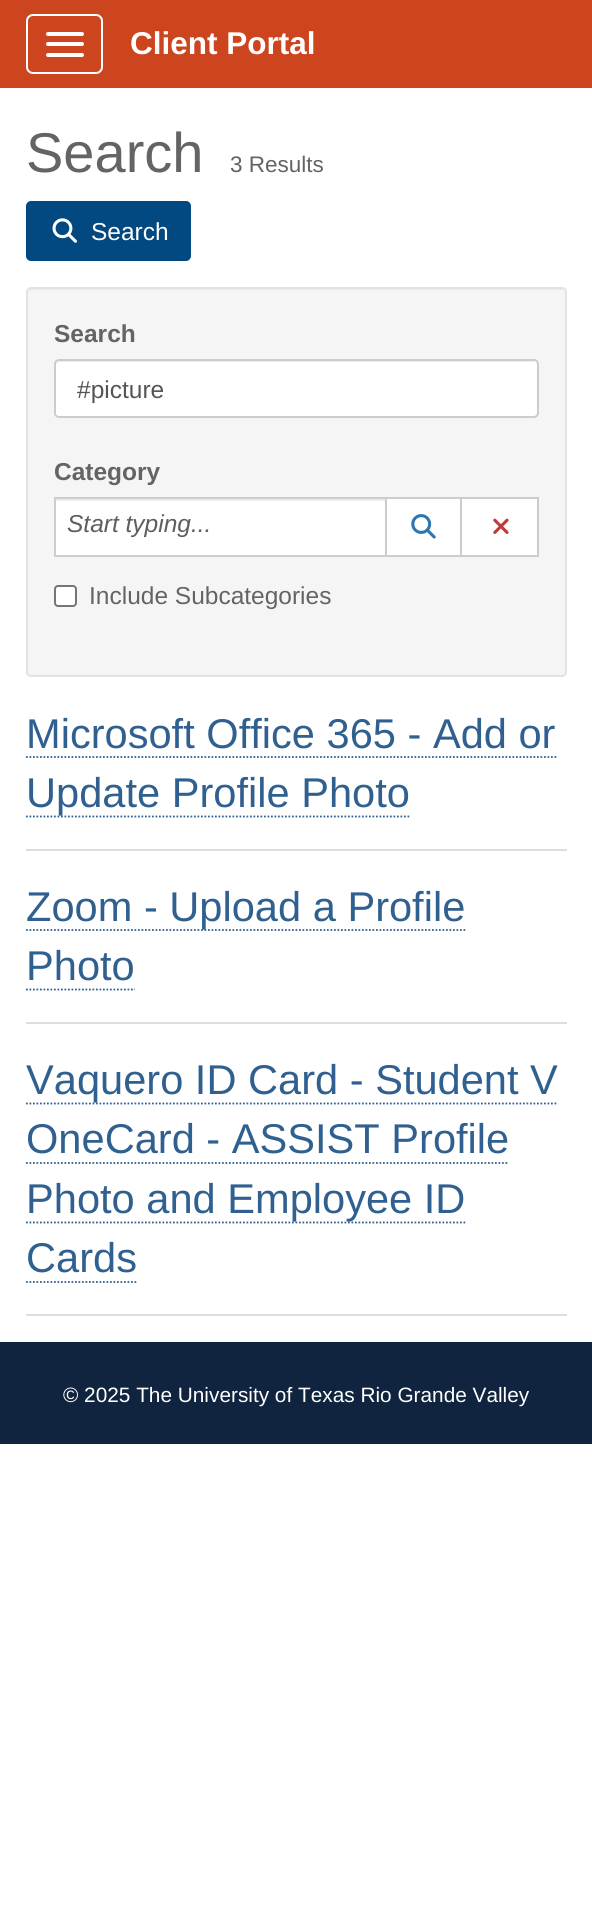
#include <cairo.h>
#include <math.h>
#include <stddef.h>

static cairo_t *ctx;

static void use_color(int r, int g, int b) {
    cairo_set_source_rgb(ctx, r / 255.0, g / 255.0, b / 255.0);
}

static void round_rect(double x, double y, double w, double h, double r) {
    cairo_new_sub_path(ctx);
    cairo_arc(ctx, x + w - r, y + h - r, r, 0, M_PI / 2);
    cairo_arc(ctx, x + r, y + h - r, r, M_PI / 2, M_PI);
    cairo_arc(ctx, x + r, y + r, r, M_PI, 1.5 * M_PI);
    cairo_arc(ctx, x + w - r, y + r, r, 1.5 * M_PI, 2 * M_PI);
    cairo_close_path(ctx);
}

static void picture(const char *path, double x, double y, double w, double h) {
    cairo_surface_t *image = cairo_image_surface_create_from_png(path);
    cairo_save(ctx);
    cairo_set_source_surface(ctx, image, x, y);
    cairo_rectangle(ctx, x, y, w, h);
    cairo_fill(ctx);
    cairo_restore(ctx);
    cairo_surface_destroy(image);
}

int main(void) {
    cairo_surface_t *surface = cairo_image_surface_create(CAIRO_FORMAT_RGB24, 592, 1911);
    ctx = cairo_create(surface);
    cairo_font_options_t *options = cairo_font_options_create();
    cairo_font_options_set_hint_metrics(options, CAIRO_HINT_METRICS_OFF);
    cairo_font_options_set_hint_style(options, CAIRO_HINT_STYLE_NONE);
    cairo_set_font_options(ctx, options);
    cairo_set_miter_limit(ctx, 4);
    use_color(255, 255, 255);
    cairo_paint(ctx);
    use_color(205, 69, 31);
    cairo_rectangle(ctx, 0, 0, 592, 88);
    cairo_fill(ctx);
    round_rect(27, 15, 75, 58, 6);
    use_color(255, 255, 255);
    cairo_stroke(ctx);
    round_rect(46, 32, 38, 4, 2);
    cairo_fill(ctx);
    round_rect(46, 42, 38, 4, 2);
    cairo_fill(ctx);
    round_rect(46, 53, 38, 4, 2);
    cairo_fill(ctx);
    cairo_select_font_face(ctx, "Liberation Sans", CAIRO_FONT_SLANT_NORMAL, CAIRO_FONT_WEIGHT_BOLD);
    cairo_set_font_size(ctx, 31.5);
    cairo_move_to(ctx, 130, 54);
    cairo_show_text(ctx, "Client Portal");
    cairo_select_font_face(ctx, "Liberation Sans", CAIRO_FONT_SLANT_NORMAL, CAIRO_FONT_WEIGHT_NORMAL);
    cairo_set_font_size(ctx, 56);
    use_color(100, 100, 100);
    cairo_move_to(ctx, 26, 172);
    cairo_show_text(ctx, "Search");
    cairo_set_font_size(ctx, 22.5);
    cairo_move_to(ctx, 230, 172);
    cairo_show_text(ctx, "3 Results");
    use_color(1, 73, 128);
    round_rect(27, 202, 163, 58, 4);
    cairo_fill_preserve(ctx);
    cairo_stroke(ctx);
    picture("img1.png", 52, 218, 25, 25);
    cairo_set_font_size(ctx, 24.5);
    use_color(255, 255, 255);
    cairo_move_to(ctx, 91, 240);
    cairo_show_text(ctx, "Search");
    use_color(245, 245, 245);
    round_rect(26, 287, 541, 390, 5);
    cairo_fill(ctx);
    use_color(233, 233, 233);
    cairo_new_path(ctx);
    cairo_move_to(ctx, 32, 290);
    cairo_line_to(ctx, 562, 290);
    cairo_curve_to(ctx, 564, 290, 565, 292, 565, 294);
    cairo_line_to(ctx, 565, 293);
    cairo_curve_to(ctx, 565, 291, 563, 289, 561, 289);
    cairo_line_to(ctx, 32, 289);
    cairo_curve_to(ctx, 30, 289, 28, 291, 28, 293);
    cairo_line_to(ctx, 28, 294);
    cairo_curve_to(ctx, 28, 292, 30, 290, 32, 290);
    cairo_close_path(ctx);
    cairo_fill(ctx);
    round_rect(27, 288, 539, 388, 4);
    use_color(227, 227, 227);
    cairo_stroke(ctx);
    cairo_select_font_face(ctx, "Liberation Sans", CAIRO_FONT_SLANT_NORMAL, CAIRO_FONT_WEIGHT_BOLD);
    use_color(100, 100, 100);
    cairo_move_to(ctx, 54, 342);
    cairo_show_text(ctx, "Search");
    use_color(255, 255, 255);
    round_rect(54, 359, 485, 59, 5);
    cairo_fill(ctx);
    use_color(236, 236, 236);
    cairo_new_path(ctx);
    cairo_move_to(ctx, 60, 362);
    cairo_line_to(ctx, 534, 362);
    cairo_curve_to(ctx, 536, 362, 537, 364, 537, 366);
    cairo_curve_to(ctx, 537, 363, 536, 361, 533, 361);
    cairo_line_to(ctx, 60, 361);
    cairo_curve_to(ctx, 57, 361, 56, 363, 56, 366);
    cairo_curve_to(ctx, 56, 364, 58, 362, 60, 362);
    cairo_close_path(ctx);
    cairo_fill(ctx);
    round_rect(55, 360, 483, 57, 4);
    use_color(204, 204, 204);
    cairo_stroke(ctx);
    cairo_select_font_face(ctx, "Liberation Sans", CAIRO_FONT_SLANT_NORMAL, CAIRO_FONT_WEIGHT_NORMAL);
    use_color(85, 85, 85);
    cairo_move_to(ctx, 77, 398);
    cairo_show_text(ctx, "#picture");
    cairo_select_font_face(ctx, "Liberation Sans", CAIRO_FONT_SLANT_NORMAL, CAIRO_FONT_WEIGHT_BOLD);
    use_color(100, 100, 100);
    cairo_move_to(ctx, 54, 480);
    cairo_show_text(ctx, "Category");
    use_color(255, 255, 255);
    cairo_rectangle(ctx, 56, 501, 329, 54);
    cairo_fill(ctx);
    use_color(236, 236, 236);
    cairo_rectangle(ctx, 56, 499, 329, 2);
    cairo_fill(ctx);
    cairo_rectangle(ctx, 55, 498, 331, 58);
    use_color(205, 205, 205);
    cairo_stroke(ctx);
    cairo_select_font_face(ctx, "Liberation Sans", CAIRO_FONT_SLANT_ITALIC, CAIRO_FONT_WEIGHT_NORMAL);
    use_color(94, 94, 94);
    cairo_move_to(ctx, 67, 532);
    cairo_show_text(ctx, "Start typing...");
    use_color(255, 255, 255);
    cairo_rectangle(ctx, 386, 498, 75, 58);
    cairo_fill_preserve(ctx);
    use_color(204, 204, 204);
    cairo_stroke(ctx);
    picture("img2.png", 411, 514, 25, 25);
    use_color(255, 255, 255);
    cairo_rectangle(ctx, 461, 498, 77, 58);
    cairo_fill_preserve(ctx);
    use_color(204, 204, 204);
    cairo_stroke(ctx);
    picture("img3.png", 493, 518, 16, 16);
    use_color(255, 255, 255);
    round_rect(55, 586, 21, 20, 3);
    cairo_fill_preserve(ctx);
    use_color(118, 118, 118);
    cairo_stroke(ctx);
    cairo_select_font_face(ctx, "Liberation Sans", CAIRO_FONT_SLANT_NORMAL, CAIRO_FONT_WEIGHT_NORMAL);
    use_color(100, 100, 100);
    cairo_move_to(ctx, 89, 604);
    cairo_show_text(ctx, "Include Subcategories");
    use_color(221, 221, 221);
    cairo_rectangle(ctx, 26, 849, 541, 2);
    cairo_fill(ctx);
    cairo_set_font_size(ctx, 41.6);
    use_color(48, 96, 144);
    cairo_move_to(ctx, 26, 748);
    cairo_show_text(ctx, "Microsoft Office 365 - Add or");
    cairo_new_path(ctx);
    cairo_move_to(ctx, 26, 757);
    cairo_line_to(ctx, 556.5, 757);
    cairo_set_line_width(ctx, 1.8);
    cairo_set_dash(ctx, (double[]){1.75, 1.75}, 2, 0);
    cairo_stroke(ctx);
    cairo_new_path(ctx);
    cairo_move_to(ctx, 26, 816.5);
    cairo_line_to(ctx, 411, 816.5);
    cairo_stroke(ctx);
    cairo_move_to(ctx, 26, 807);
    cairo_show_text(ctx, "Update Profile Photo");
    use_color(221, 221, 221);
    cairo_rectangle(ctx, 26, 1022, 541, 2);
    cairo_fill(ctx);
    cairo_new_path(ctx);
    cairo_move_to(ctx, 26, 930);
    cairo_line_to(ctx, 465.5, 930);
    use_color(48, 96, 144);
    cairo_stroke(ctx);
    cairo_move_to(ctx, 26, 921);
    cairo_show_text(ctx, "Zoom - Upload a Profile");
    cairo_move_to(ctx, 26, 980);
    cairo_show_text(ctx, "Photo");
    cairo_new_path(ctx);
    cairo_move_to(ctx, 26, 989.5);
    cairo_line_to(ctx, 135, 989.5);
    cairo_stroke(ctx);
    use_color(221, 221, 221);
    cairo_rectangle(ctx, 26, 1314, 541, 2);
    cairo_fill(ctx);
    cairo_new_path(ctx);
    cairo_move_to(ctx, 26, 1103.5);
    cairo_line_to(ctx, 558, 1103.5);
    use_color(48, 96, 144);
    cairo_stroke(ctx);
    cairo_move_to(ctx, 26, 1094);
    cairo_show_text(ctx, "Vaquero ID Card - Student V");
    cairo_move_to(ctx, 26, 1153);
    cairo_show_text(ctx, "OneCard - ASSIST Profile");
    cairo_new_path(ctx);
    cairo_move_to(ctx, 26, 1163);
    cairo_line_to(ctx, 509, 1163);
    cairo_stroke(ctx);
    cairo_new_path(ctx);
    cairo_move_to(ctx, 26, 1222.5);
    cairo_line_to(ctx, 465.5, 1222.5);
    cairo_stroke(ctx);
    cairo_move_to(ctx, 26, 1213);
    cairo_show_text(ctx, "Photo and Employee ID");
    cairo_move_to(ctx, 26, 1272);
    cairo_show_text(ctx, "Cards");
    cairo_new_path(ctx);
    cairo_move_to(ctx, 26, 1282);
    cairo_line_to(ctx, 136.5, 1282);
    cairo_stroke(ctx);
    use_color(16, 35, 63);
    cairo_rectangle(ctx, 0, 1342, 592, 102);
    cairo_fill(ctx);
    cairo_set_font_size(ctx, 20.8);
    use_color(255, 255, 255);
    cairo_move_to(ctx, 63, 1402);
    cairo_show_text(ctx, "© 2025 The University of Texas Rio Grande Valley");
    cairo_surface_write_to_png(surface, "result.png");
    cairo_font_options_destroy(options);
    cairo_destroy(ctx);
    cairo_surface_destroy(surface);
    return 0;
}
